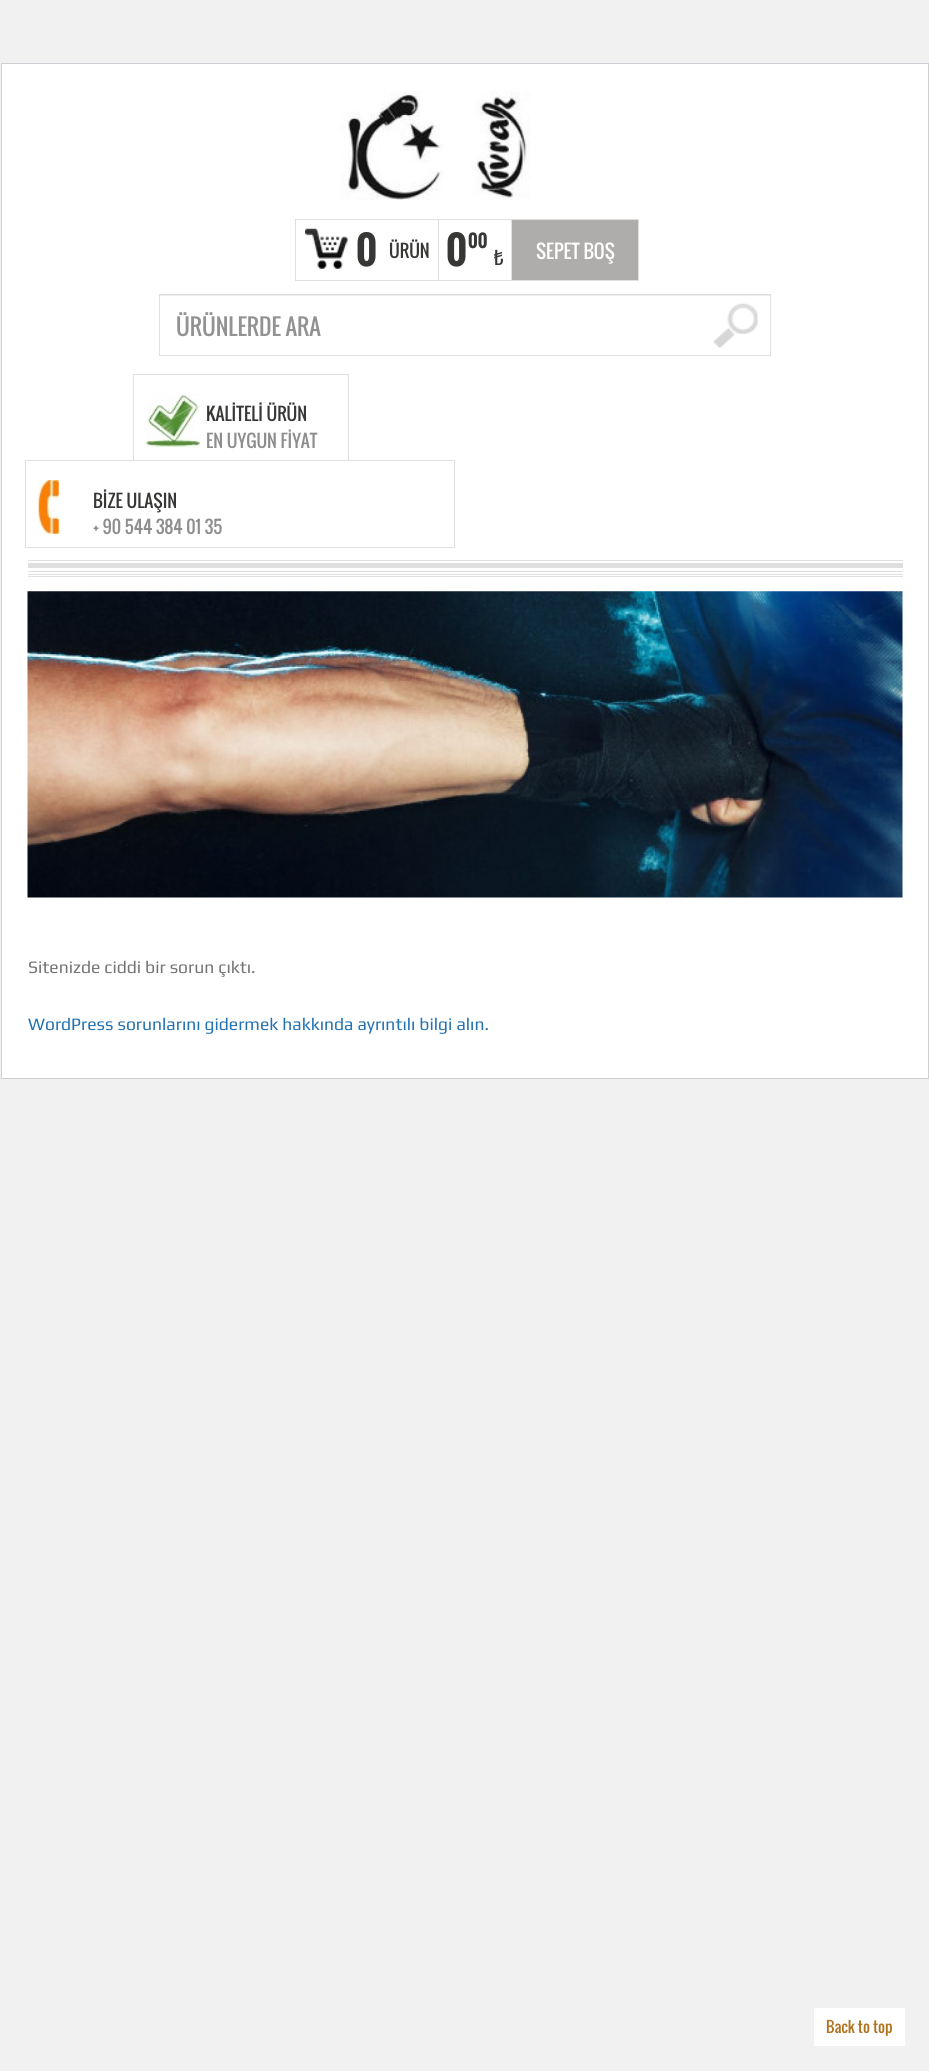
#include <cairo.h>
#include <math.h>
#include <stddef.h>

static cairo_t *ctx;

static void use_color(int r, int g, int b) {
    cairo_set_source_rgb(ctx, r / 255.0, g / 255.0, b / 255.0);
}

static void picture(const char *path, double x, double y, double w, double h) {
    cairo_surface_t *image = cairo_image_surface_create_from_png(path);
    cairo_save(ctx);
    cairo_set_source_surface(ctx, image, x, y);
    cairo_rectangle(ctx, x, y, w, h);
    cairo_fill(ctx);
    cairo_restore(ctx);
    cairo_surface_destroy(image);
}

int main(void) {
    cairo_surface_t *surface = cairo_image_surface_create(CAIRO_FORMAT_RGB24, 929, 2071);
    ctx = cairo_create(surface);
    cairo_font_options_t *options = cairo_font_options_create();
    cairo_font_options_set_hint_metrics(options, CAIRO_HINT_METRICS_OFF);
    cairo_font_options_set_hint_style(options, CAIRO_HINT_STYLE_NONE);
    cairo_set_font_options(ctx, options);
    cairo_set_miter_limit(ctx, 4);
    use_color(241, 241, 241);
    cairo_paint(ctx);
    use_color(255, 255, 255);
    cairo_rectangle(ctx, 1.5, 63.5, 927, 1015);
    cairo_fill_preserve(ctx);
    use_color(204, 208, 212);
    cairo_set_line_width(ctx, 1);
    cairo_stroke(ctx);
    picture("img1.png", 340, 91, 190, 109);
    picture("img2.png", 305, 228, 43, 41);
    cairo_rectangle(ctx, 295.5, 219.5, 143, 61);
    use_color(224, 223, 223);
    cairo_stroke(ctx);
    cairo_select_font_face(ctx, "Oswald", CAIRO_FONT_SLANT_NORMAL, CAIRO_FONT_WEIGHT_BOLD);
    cairo_set_font_size(ctx, 38);
    use_color(55, 55, 54);
    cairo_move_to(ctx, 356, 266);
    cairo_show_text(ctx, "0");
    cairo_select_font_face(ctx, "Oswald", CAIRO_FONT_SLANT_NORMAL, CAIRO_FONT_WEIGHT_NORMAL);
    cairo_set_font_size(ctx, 17.5);
    cairo_move_to(ctx, 389, 258);
    cairo_show_text(ctx, "ÜRÜN");
    cairo_rectangle(ctx, 438.5, 219.5, 74, 61);
    use_color(224, 223, 223);
    cairo_stroke(ctx);
    cairo_select_font_face(ctx, "Oswald", CAIRO_FONT_SLANT_NORMAL, CAIRO_FONT_WEIGHT_BOLD);
    cairo_set_font_size(ctx, 38);
    use_color(55, 55, 54);
    cairo_move_to(ctx, 446, 266);
    cairo_show_text(ctx, "0");
    cairo_set_font_size(ctx, 17.5);
    cairo_move_to(ctx, 468, 248);
    cairo_show_text(ctx, "00");
    cairo_select_font_face(ctx, "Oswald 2", CAIRO_FONT_SLANT_NORMAL, CAIRO_FONT_WEIGHT_NORMAL);
    cairo_set_font_size(ctx, 18.75);
    cairo_move_to(ctx, 494, 265);
    cairo_show_text(ctx, "₺");
    use_color(175, 172, 172);
    cairo_rectangle(ctx, 511.5, 219.5, 127, 61);
    cairo_fill_preserve(ctx);
    use_color(224, 223, 223);
    cairo_stroke(ctx);
    cairo_select_font_face(ctx, "Oswald", CAIRO_FONT_SLANT_NORMAL, CAIRO_FONT_WEIGHT_NORMAL);
    use_color(255, 255, 255);
    cairo_move_to(ctx, 536, 259);
    cairo_show_text(ctx, "SEPET BOŞ");
    picture("img3.png", 713, 303, 45, 45);
    use_color(236, 236, 236);
    cairo_rectangle(ctx, 160, 295, 610, 1);
    cairo_fill(ctx);
    cairo_rectangle(ctx, 159.5, 294.5, 611, 61);
    use_color(224, 223, 223);
    cairo_stroke(ctx);
    cairo_set_font_size(ctx, 22.5);
    use_color(147, 146, 146);
    cairo_move_to(ctx, 176, 336);
    cairo_show_text(ctx, "ÜRÜNLERDE ARA");
    cairo_rectangle(ctx, 133.5, 374.5, 215, 86);
    use_color(224, 223, 223);
    cairo_stroke(ctx);
    picture("img4.png", 146, 394, 54, 54);
    cairo_set_font_size(ctx, 17.5);
    use_color(55, 55, 54);
    cairo_move_to(ctx, 206, 421);
    cairo_show_text(ctx, "KALİTELİ ÜRÜN");
    use_color(141, 141, 141);
    cairo_move_to(ctx, 206, 448);
    cairo_show_text(ctx, "EN UYGUN FİYAT");
    cairo_rectangle(ctx, 25.5, 460.5, 429, 87);
    use_color(224, 223, 223);
    cairo_stroke(ctx);
    picture("img5.png", 38, 480, 21, 54);
    use_color(55, 55, 54);
    cairo_move_to(ctx, 93, 508);
    cairo_show_text(ctx, "BİZE ULAŞIN");
    use_color(141, 141, 141);
    cairo_move_to(ctx, 93, 534);
    cairo_show_text(ctx, "+ 90 544 384 01 35");
    use_color(224, 223, 223);
    cairo_rectangle(ctx, 28, 560, 875, 1);
    cairo_fill(ctx);
    cairo_rectangle(ctx, 28, 563, 875, 5);
    cairo_fill(ctx);
    cairo_rectangle(ctx, 28, 571, 875, 1);
    cairo_fill(ctx);
    cairo_rectangle(ctx, 28, 574, 875, 1);
    cairo_fill(ctx);
    cairo_rectangle(ctx, 28, 576, 875, 1);
    cairo_fill(ctx);
    picture("img6.png", 27, 591, 876, 307);
    cairo_select_font_face(ctx, "Play", CAIRO_FONT_SLANT_NORMAL, CAIRO_FONT_WEIGHT_NORMAL);
    use_color(116, 115, 115);
    cairo_move_to(ctx, 28, 973);
    cairo_show_text(ctx, "Sitenizde ciddi bir sorun çıktı.");
    use_color(34, 113, 177);
    cairo_move_to(ctx, 28, 1030);
    cairo_show_text(ctx, "WordPress sorunlarını gidermek hakkında ayrıntılı bilgi alın.");
    use_color(255, 255, 255);
    cairo_rectangle(ctx, 814, 2008, 91, 38);
    cairo_fill(ctx);
    cairo_select_font_face(ctx, "Oswald", CAIRO_FONT_SLANT_NORMAL, CAIRO_FONT_WEIGHT_NORMAL);
    cairo_set_font_size(ctx, 15);
    use_color(176, 115, 31);
    cairo_move_to(ctx, 826, 2033);
    cairo_show_text(ctx, "Back to top");
    cairo_surface_write_to_png(surface, "result.png");
    cairo_font_options_destroy(options);
    cairo_destroy(ctx);
    cairo_surface_destroy(surface);
    return 0;
}
